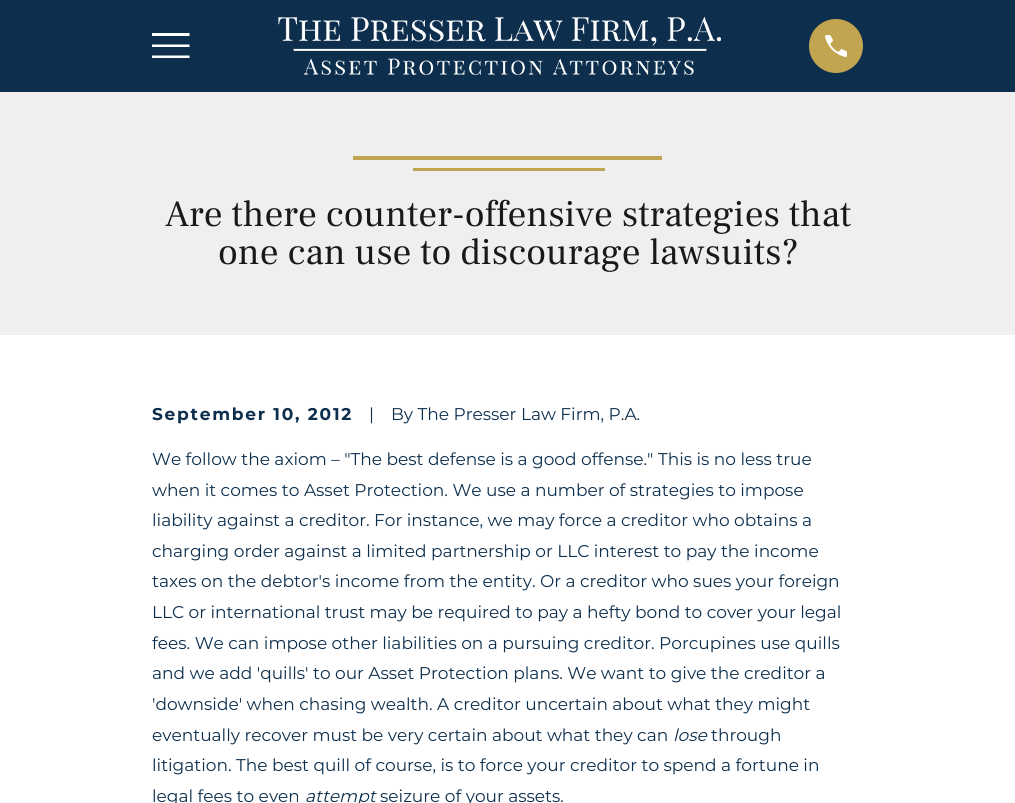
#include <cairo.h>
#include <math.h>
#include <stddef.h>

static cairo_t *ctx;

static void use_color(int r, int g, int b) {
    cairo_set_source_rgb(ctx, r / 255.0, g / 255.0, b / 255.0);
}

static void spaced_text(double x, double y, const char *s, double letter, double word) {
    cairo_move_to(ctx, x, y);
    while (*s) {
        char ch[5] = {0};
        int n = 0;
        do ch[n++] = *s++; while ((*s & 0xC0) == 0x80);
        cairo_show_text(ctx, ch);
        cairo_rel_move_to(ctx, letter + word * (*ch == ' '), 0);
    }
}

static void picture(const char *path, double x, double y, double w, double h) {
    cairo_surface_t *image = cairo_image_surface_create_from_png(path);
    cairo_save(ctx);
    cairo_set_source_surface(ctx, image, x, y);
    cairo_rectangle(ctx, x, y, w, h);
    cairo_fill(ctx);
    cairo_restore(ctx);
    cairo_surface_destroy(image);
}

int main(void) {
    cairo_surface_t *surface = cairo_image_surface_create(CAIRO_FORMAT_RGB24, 1015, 803);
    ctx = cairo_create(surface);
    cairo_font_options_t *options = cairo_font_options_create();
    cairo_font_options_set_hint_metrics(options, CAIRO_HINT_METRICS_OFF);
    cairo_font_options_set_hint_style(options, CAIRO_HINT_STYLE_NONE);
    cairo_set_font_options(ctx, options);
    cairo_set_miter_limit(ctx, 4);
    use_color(255, 255, 255);
    cairo_paint(ctx);
    use_color(13, 47, 77);
    cairo_rectangle(ctx, 0, 0, 1015, 92);
    cairo_fill(ctx);
    use_color(255, 255, 255);
    cairo_new_path(ctx);
    cairo_move_to(ctx, 152, 33);
    cairo_line_to(ctx, 152, 36);
    cairo_line_to(ctx, 189.5, 36);
    cairo_line_to(ctx, 189.5, 33);
    cairo_close_path(ctx);
    cairo_move_to(ctx, 152, 44.5);
    cairo_line_to(ctx, 152, 47);
    cairo_line_to(ctx, 189.5, 47);
    cairo_line_to(ctx, 189.5, 44.5);
    cairo_close_path(ctx);
    cairo_move_to(ctx, 152, 55.5);
    cairo_line_to(ctx, 152, 58);
    cairo_line_to(ctx, 189.5, 58);
    cairo_line_to(ctx, 189.5, 55.5);
    cairo_close_path(ctx);
    cairo_fill(ctx);
    picture("img1.png", 278, 17, 443, 58);
    use_color(194, 165, 80);
    cairo_arc(ctx, 836, 46, 27, 0, 2 * M_PI);
    cairo_fill(ctx);
    picture("img2.png", 825, 35, 22, 22);
    use_color(239, 239, 239);
    cairo_rectangle(ctx, 0, 92, 1015, 243);
    cairo_fill(ctx);
    cairo_save(ctx);
    cairo_rectangle(ctx, 353, 156, 309, 15);
    cairo_clip(ctx);
    use_color(194, 165, 80);
    cairo_new_path(ctx);
    cairo_move_to(ctx, 353, 160);
    cairo_line_to(ctx, 353, 154);
    cairo_line_to(ctx, 663, 154);
    cairo_line_to(ctx, 663, 160);
    cairo_close_path(ctx);
    cairo_move_to(ctx, 605, 172);
    cairo_line_to(ctx, 413, 172);
    cairo_line_to(ctx, 413, 168);
    cairo_line_to(ctx, 605, 168);
    cairo_close_path(ctx);
    cairo_fill(ctx);
    cairo_restore(ctx);
    cairo_select_font_face(ctx, "Frank Ruhl Libre", CAIRO_FONT_SLANT_NORMAL, CAIRO_FONT_WEIGHT_NORMAL);
    cairo_set_font_size(ctx, 37.25);
    use_color(25, 25, 25);
    cairo_move_to(ctx, 165, 226);
    cairo_show_text(ctx, "Are there counter-offensive strategies that");
    cairo_move_to(ctx, 218, 264);
    cairo_show_text(ctx, "one can use to discourage lawsuits?");
    cairo_select_font_face(ctx, "Montserrat", CAIRO_FONT_SLANT_NORMAL, CAIRO_FONT_WEIGHT_BOLD);
    cairo_set_font_size(ctx, 17);
    use_color(13, 47, 77);
    spaced_text(152, 420, "September 10, 2012", 1.75, 0);
    cairo_select_font_face(ctx, "Montserrat", CAIRO_FONT_SLANT_NORMAL, CAIRO_FONT_WEIGHT_NORMAL);
    cairo_move_to(ctx, 369, 420);
    cairo_show_text(ctx, "|");
    cairo_move_to(ctx, 391, 420);
    cairo_show_text(ctx, "By The Presser Law Firm, P.A.");
    cairo_move_to(ctx, 152, 465);
    cairo_show_text(ctx, "We follow the axiom – \"The best defense is a good offense.\" This is no less true");
    cairo_move_to(ctx, 152, 496);
    cairo_show_text(ctx, "when it comes to Asset Protection. We use a number of strategies to impose");
    cairo_move_to(ctx, 152, 526);
    cairo_show_text(ctx, "liability against a creditor. For instance, we may force a creditor who obtains a");
    cairo_move_to(ctx, 152, 557);
    cairo_show_text(ctx, "charging order against a limited partnership or LLC interest to pay the income");
    cairo_move_to(ctx, 152, 587);
    cairo_show_text(ctx, "taxes on the debtor's income from the entity. Or a creditor who sues your foreign");
    cairo_move_to(ctx, 152, 618);
    cairo_show_text(ctx, "LLC or international trust may be required to pay a hefty bond to cover your legal");
    cairo_move_to(ctx, 152, 649);
    cairo_show_text(ctx, "fees. We can impose other liabilities on a pursuing creditor. Porcupines use quills");
    cairo_move_to(ctx, 152, 679);
    cairo_show_text(ctx, "and we add 'quills' to our Asset Protection plans. We want to give the creditor a");
    cairo_move_to(ctx, 152, 710);
    cairo_show_text(ctx, "'downside' when chasing wealth. A creditor uncertain about what they might");
    cairo_move_to(ctx, 152, 741);
    cairo_show_text(ctx, "eventually recover must be very certain about what they can");
    cairo_select_font_face(ctx, "Montserrat", CAIRO_FONT_SLANT_ITALIC, CAIRO_FONT_WEIGHT_NORMAL);
    cairo_move_to(ctx, 673, 741);
    cairo_show_text(ctx, "lose");
    cairo_select_font_face(ctx, "Montserrat", CAIRO_FONT_SLANT_NORMAL, CAIRO_FONT_WEIGHT_NORMAL);
    cairo_move_to(ctx, 711, 741);
    cairo_show_text(ctx, "through");
    cairo_move_to(ctx, 152, 771);
    cairo_show_text(ctx, "litigation. The best quill of course, is to force your creditor to spend a fortune in");
    cairo_move_to(ctx, 152, 802);
    cairo_show_text(ctx, "legal fees to even");
    cairo_select_font_face(ctx, "Montserrat", CAIRO_FONT_SLANT_ITALIC, CAIRO_FONT_WEIGHT_NORMAL);
    cairo_move_to(ctx, 305, 802);
    cairo_show_text(ctx, "attempt");
    cairo_select_font_face(ctx, "Montserrat", CAIRO_FONT_SLANT_NORMAL, CAIRO_FONT_WEIGHT_NORMAL);
    cairo_move_to(ctx, 380, 802);
    cairo_show_text(ctx, "seizure of your assets.");
    cairo_surface_write_to_png(surface, "result.png");
    cairo_font_options_destroy(options);
    cairo_destroy(ctx);
    cairo_surface_destroy(surface);
    return 0;
}
